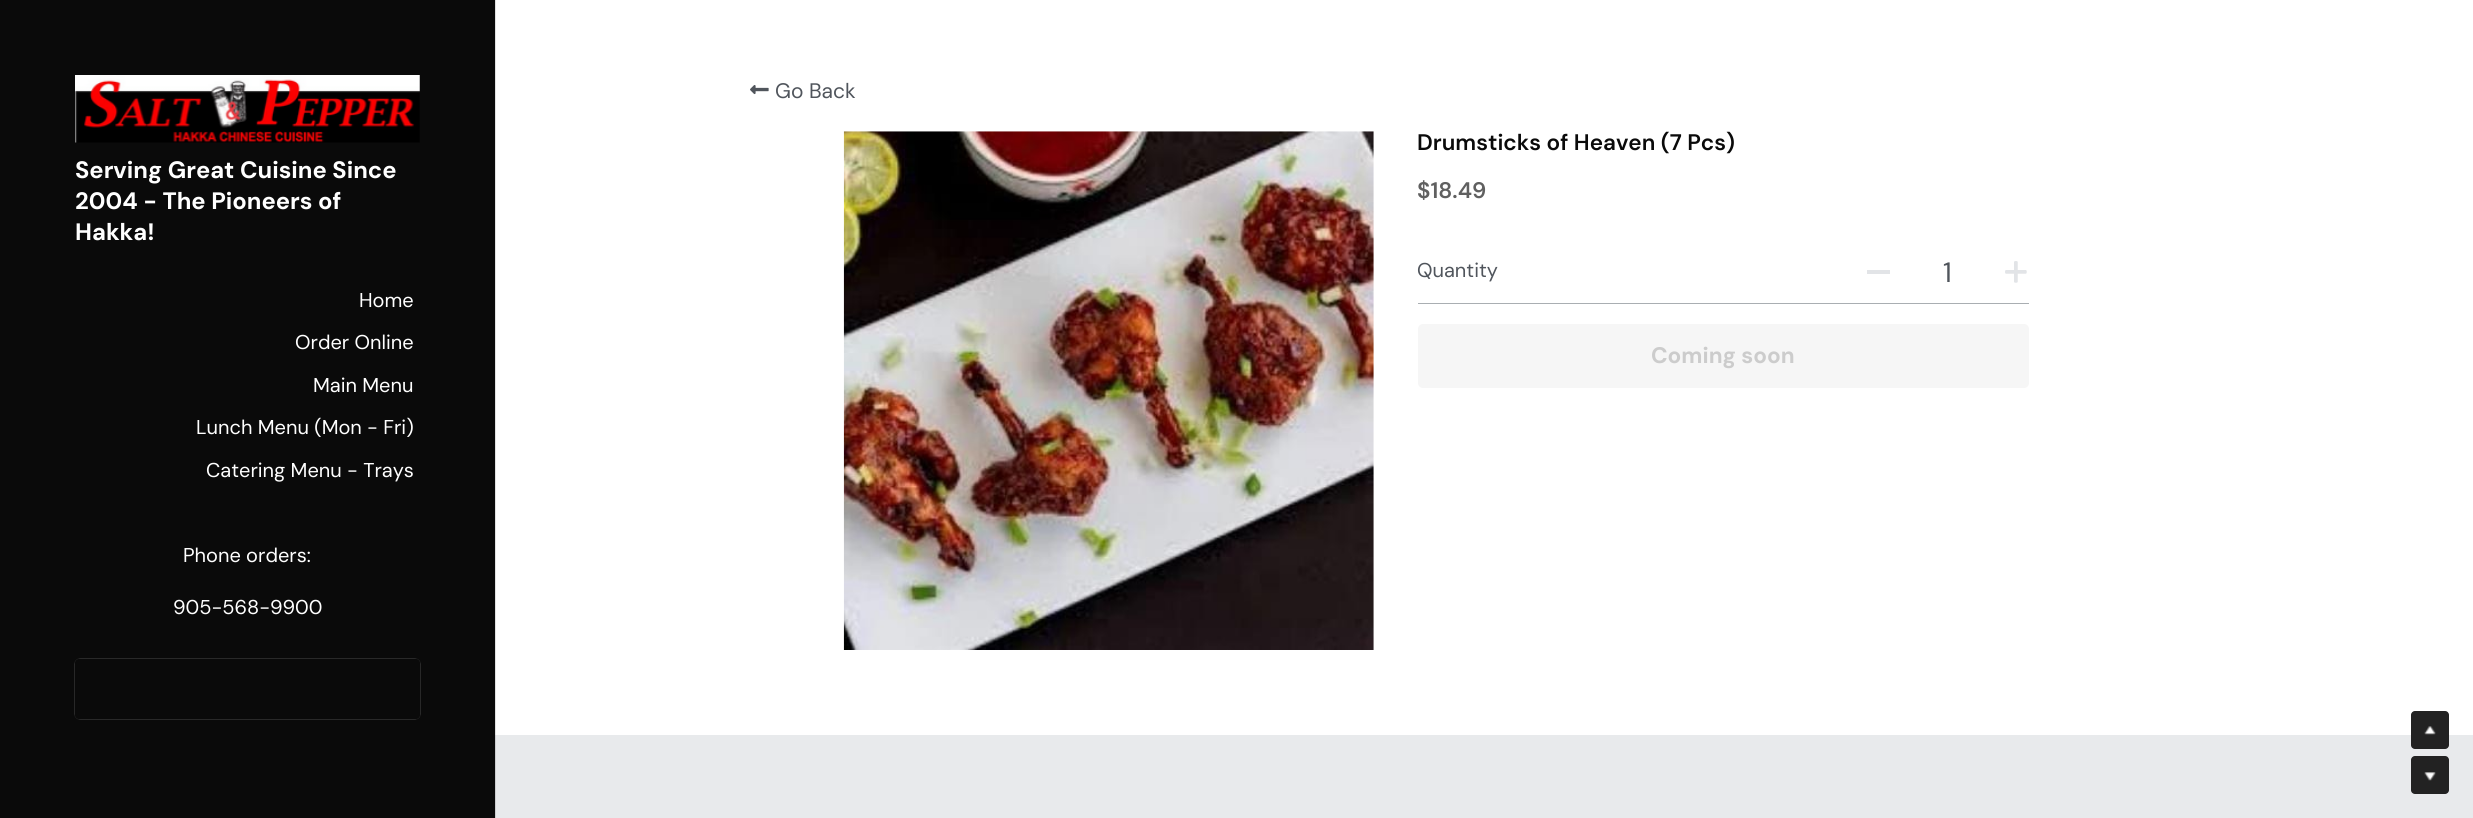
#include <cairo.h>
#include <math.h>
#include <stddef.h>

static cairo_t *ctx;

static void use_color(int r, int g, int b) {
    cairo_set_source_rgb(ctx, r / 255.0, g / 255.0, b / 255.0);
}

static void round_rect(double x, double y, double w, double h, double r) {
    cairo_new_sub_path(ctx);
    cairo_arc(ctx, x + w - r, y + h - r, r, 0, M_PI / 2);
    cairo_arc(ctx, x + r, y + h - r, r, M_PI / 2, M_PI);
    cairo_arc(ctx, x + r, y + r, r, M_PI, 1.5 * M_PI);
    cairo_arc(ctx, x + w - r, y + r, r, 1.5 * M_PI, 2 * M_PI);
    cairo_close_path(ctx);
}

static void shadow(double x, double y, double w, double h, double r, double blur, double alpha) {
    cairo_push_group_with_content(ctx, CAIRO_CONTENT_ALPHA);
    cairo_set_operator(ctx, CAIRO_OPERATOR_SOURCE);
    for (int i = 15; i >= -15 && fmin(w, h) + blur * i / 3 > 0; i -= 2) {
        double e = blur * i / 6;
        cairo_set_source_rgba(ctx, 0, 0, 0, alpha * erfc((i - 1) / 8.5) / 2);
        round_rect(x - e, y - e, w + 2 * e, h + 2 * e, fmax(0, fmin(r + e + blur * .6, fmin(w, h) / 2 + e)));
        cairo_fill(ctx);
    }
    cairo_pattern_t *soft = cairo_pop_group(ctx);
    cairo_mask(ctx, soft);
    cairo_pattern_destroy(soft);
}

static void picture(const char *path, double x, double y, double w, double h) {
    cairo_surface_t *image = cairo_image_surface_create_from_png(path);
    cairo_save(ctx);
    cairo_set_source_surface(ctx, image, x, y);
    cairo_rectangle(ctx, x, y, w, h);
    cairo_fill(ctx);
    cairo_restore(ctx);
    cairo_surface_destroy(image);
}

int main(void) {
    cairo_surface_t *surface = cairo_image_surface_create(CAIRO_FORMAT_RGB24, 2473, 818);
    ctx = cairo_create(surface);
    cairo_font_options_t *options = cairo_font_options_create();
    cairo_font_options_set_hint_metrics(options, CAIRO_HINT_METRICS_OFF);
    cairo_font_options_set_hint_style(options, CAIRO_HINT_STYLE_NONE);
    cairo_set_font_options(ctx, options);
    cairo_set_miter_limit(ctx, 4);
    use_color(255, 255, 255);
    cairo_paint(ctx);
    use_color(232, 234, 236);
    cairo_rectangle(ctx, 495, 735, 1978, 83);
    cairo_fill(ctx);
    cairo_set_source_rgba(ctx, 0, 0, 0, 0.12);
    cairo_new_path(ctx);
    cairo_move_to(ctx, 1, 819);
    cairo_line_to(ctx, 496, 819);
    cairo_line_to(ctx, 496, 0);
    cairo_line_to(ctx, 495, 0);
    cairo_line_to(ctx, 495, 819);
    cairo_close_path(ctx);
    cairo_fill(ctx);
    use_color(10, 10, 10);
    cairo_rectangle(ctx, 0, 0, 495, 818);
    cairo_fill(ctx);
    picture("img1.png", 75, 75, 345, 68);
    cairo_select_font_face(ctx, "DM Sans", CAIRO_FONT_SLANT_NORMAL, CAIRO_FONT_WEIGHT_BOLD);
    cairo_set_font_size(ctx, 23.75);
    use_color(255, 255, 255);
    cairo_move_to(ctx, 75, 178);
    cairo_show_text(ctx, "Serving Great Cuisine Since");
    cairo_move_to(ctx, 75, 209);
    cairo_show_text(ctx, "2004 - The Pioneers of");
    cairo_move_to(ctx, 75, 240);
    cairo_show_text(ctx, "Hakka!");
    cairo_select_font_face(ctx, "DM Sans", CAIRO_FONT_SLANT_NORMAL, CAIRO_FONT_WEIGHT_NORMAL);
    cairo_set_font_size(ctx, 20);
    cairo_move_to(ctx, 359, 307);
    cairo_show_text(ctx, "Home");
    cairo_move_to(ctx, 295, 349);
    cairo_show_text(ctx, "Order Online");
    cairo_move_to(ctx, 313, 392);
    cairo_show_text(ctx, "Main Menu");
    cairo_move_to(ctx, 196, 434);
    cairo_show_text(ctx, "Lunch Menu (Mon - Fri)");
    cairo_move_to(ctx, 206, 477);
    cairo_show_text(ctx, "Catering Menu - Trays");
    cairo_move_to(ctx, 183, 562);
    cairo_show_text(ctx, "Phone orders:");
    cairo_move_to(ctx, 173, 614);
    cairo_show_text(ctx, "905-568-9900");
    cairo_save(ctx);
    cairo_set_fill_rule(ctx, CAIRO_FILL_RULE_EVEN_ODD);
    cairo_new_path(ctx);
    cairo_move_to(ctx, 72, 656);
    cairo_line_to(ctx, 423, 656);
    cairo_line_to(ctx, 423, 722);
    cairo_line_to(ctx, 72, 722);
    cairo_close_path(ctx);
    cairo_move_to(ctx, 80, 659);
    cairo_line_to(ctx, 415, 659);
    cairo_curve_to(ctx, 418, 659, 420, 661, 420, 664);
    cairo_line_to(ctx, 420, 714);
    cairo_curve_to(ctx, 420, 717, 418, 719, 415, 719);
    cairo_line_to(ctx, 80, 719);
    cairo_curve_to(ctx, 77, 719, 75, 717, 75, 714);
    cairo_line_to(ctx, 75, 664);
    cairo_curve_to(ctx, 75, 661, 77, 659, 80, 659);
    cairo_close_path(ctx);
    cairo_clip(ctx);
    use_color(255, 255, 255);
    shadow(75, 659, 345, 60, 5, 0.5, 0.5);
    cairo_restore(ctx);
    round_rect(76.5, 660.5, 342, 57, 3.5);
    use_color(10, 10, 10);
    cairo_set_line_width(ctx, 3);
    cairo_stroke(ctx);
    picture("img2.png", 750, 85, 19, 10);
    cairo_set_font_size(ctx, 21);
    use_color(80, 85, 92);
    cairo_move_to(ctx, 775, 98);
    cairo_show_text(ctx, "Go Back");
    picture("img3.png", 843, 131, 531, 519);
    cairo_select_font_face(ctx, "DM Sans SemiBold", CAIRO_FONT_SLANT_NORMAL, CAIRO_FONT_WEIGHT_NORMAL);
    cairo_set_font_size(ctx, 22.5);
    use_color(10, 10, 10);
    cairo_move_to(ctx, 1417, 150);
    cairo_show_text(ctx, "Drumsticks of Heaven (7 Pcs)");
    use_color(96, 96, 96);
    cairo_move_to(ctx, 1417, 198);
    cairo_show_text(ctx, "$18.49");
    use_color(169, 174, 178);
    cairo_rectangle(ctx, 1418, 303, 611, 1);
    cairo_fill(ctx);
    cairo_select_font_face(ctx, "DM Sans", CAIRO_FONT_SLANT_NORMAL, CAIRO_FONT_WEIGHT_NORMAL);
    cairo_set_font_size(ctx, 20);
    use_color(80, 85, 92);
    cairo_move_to(ctx, 1417, 277);
    cairo_show_text(ctx, "Quantity");
    use_color(226, 228, 231);
    cairo_rectangle(ctx, 1867, 270, 23, 4);
    cairo_fill(ctx);
    cairo_set_font_size(ctx, 28);
    use_color(80, 85, 92);
    cairo_move_to(ctx, 1943, 282);
    cairo_show_text(ctx, "1");
    picture("img4.png", 2005, 261, 22, 22);
    use_color(246, 246, 246);
    round_rect(1418, 324, 611, 64, 5);
    cairo_fill(ctx);
    cairo_select_font_face(ctx, "DM Sans", CAIRO_FONT_SLANT_NORMAL, CAIRO_FONT_WEIGHT_BOLD);
    cairo_set_font_size(ctx, 22.5);
    use_color(204, 204, 204);
    cairo_move_to(ctx, 1651, 363);
    cairo_show_text(ctx, "Coming soon");
    use_color(34, 34, 34);
    round_rect(2411, 711, 38, 38, 4);
    cairo_fill(ctx);
    picture("img5.png", 2424, 726, 12, 9);
    round_rect(2411, 756, 38, 38, 4);
    cairo_fill(ctx);
    picture("img6.png", 2424, 772, 12, 9);
    cairo_surface_write_to_png(surface, "result.png");
    cairo_font_options_destroy(options);
    cairo_destroy(ctx);
    cairo_surface_destroy(surface);
    return 0;
}
